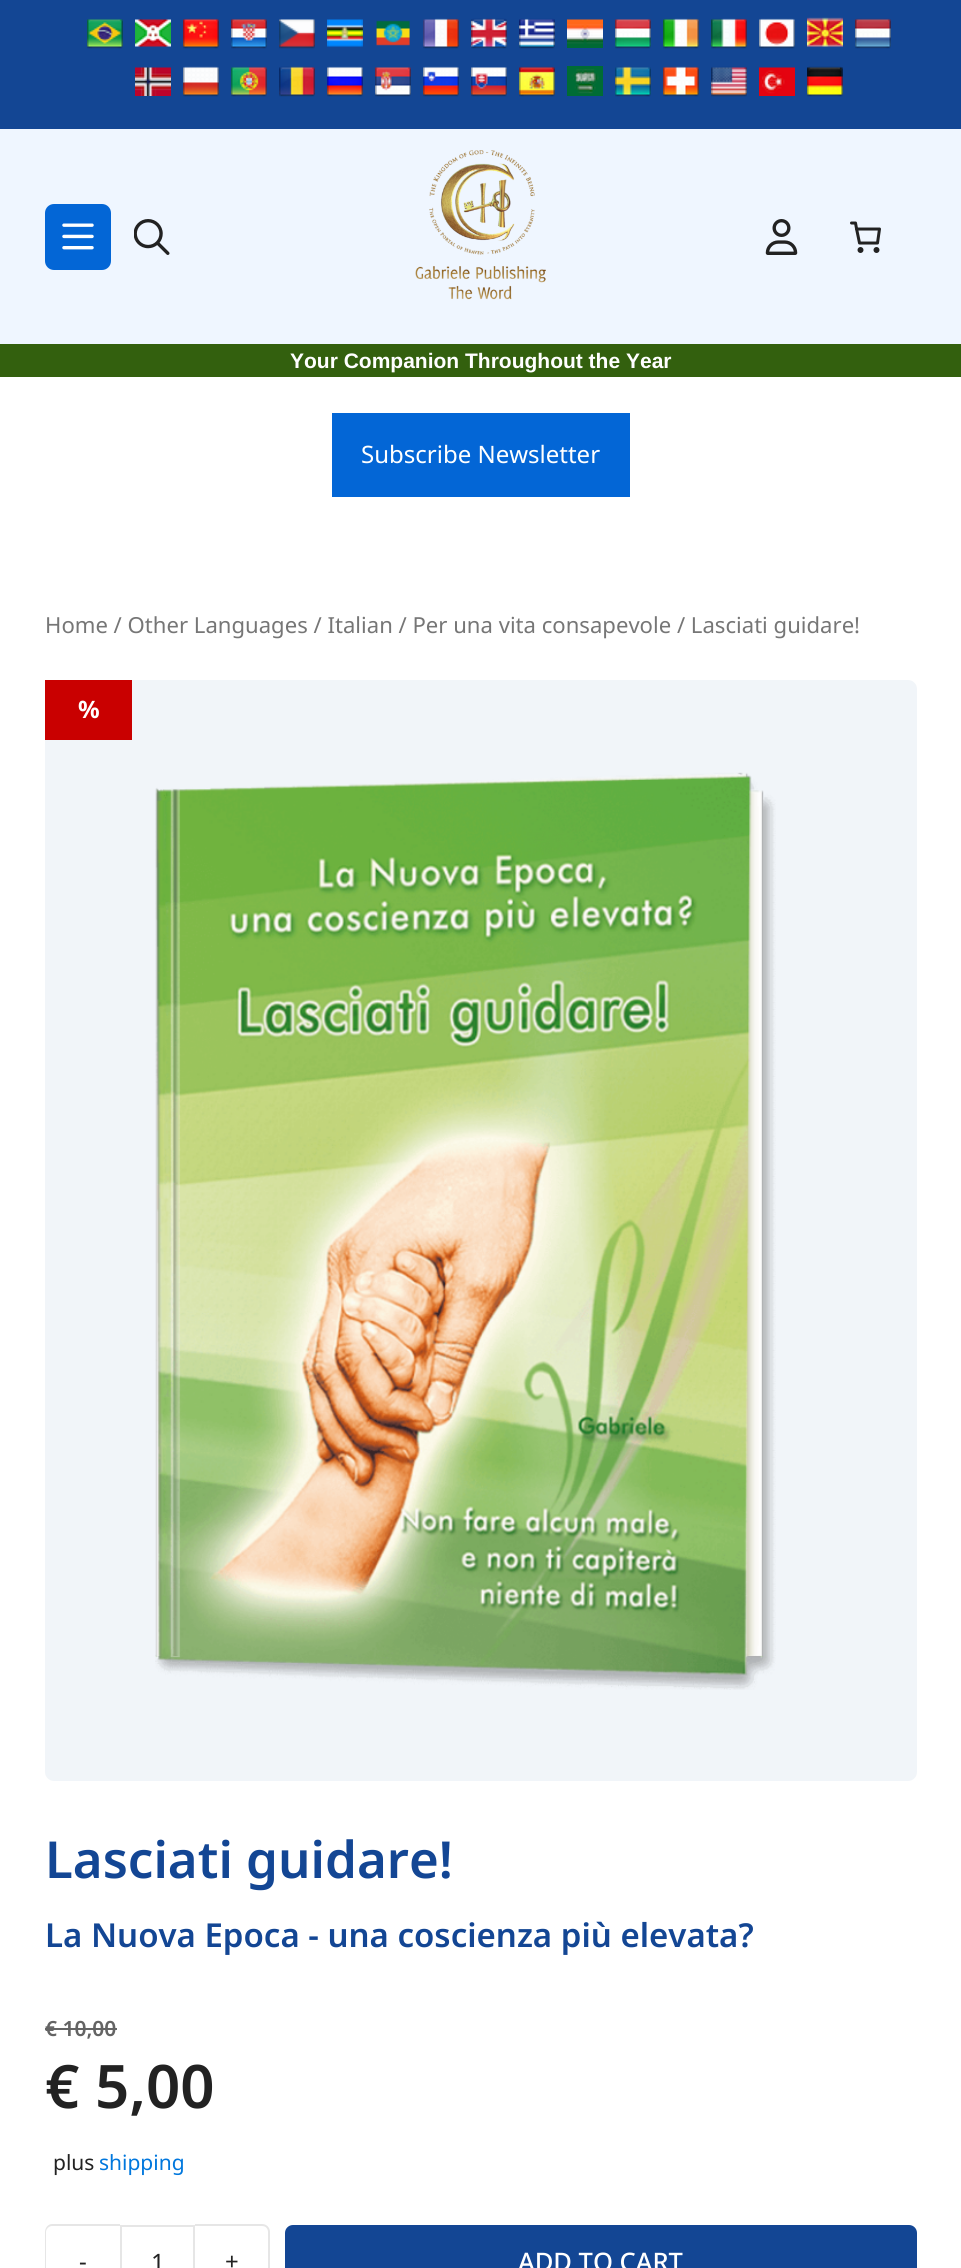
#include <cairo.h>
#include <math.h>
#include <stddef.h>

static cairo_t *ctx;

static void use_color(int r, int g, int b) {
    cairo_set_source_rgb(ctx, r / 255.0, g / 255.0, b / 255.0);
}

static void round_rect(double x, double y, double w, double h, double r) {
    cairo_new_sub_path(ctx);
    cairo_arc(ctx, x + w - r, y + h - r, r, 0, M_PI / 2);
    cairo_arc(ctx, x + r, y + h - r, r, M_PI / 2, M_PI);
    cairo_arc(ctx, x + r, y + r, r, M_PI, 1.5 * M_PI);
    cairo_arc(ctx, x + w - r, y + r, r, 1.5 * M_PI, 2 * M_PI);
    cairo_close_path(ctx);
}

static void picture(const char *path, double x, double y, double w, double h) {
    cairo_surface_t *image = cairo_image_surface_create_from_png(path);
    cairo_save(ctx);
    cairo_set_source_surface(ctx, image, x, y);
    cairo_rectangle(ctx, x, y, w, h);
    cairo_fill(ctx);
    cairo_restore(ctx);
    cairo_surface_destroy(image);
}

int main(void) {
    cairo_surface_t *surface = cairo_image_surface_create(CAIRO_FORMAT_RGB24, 961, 2268);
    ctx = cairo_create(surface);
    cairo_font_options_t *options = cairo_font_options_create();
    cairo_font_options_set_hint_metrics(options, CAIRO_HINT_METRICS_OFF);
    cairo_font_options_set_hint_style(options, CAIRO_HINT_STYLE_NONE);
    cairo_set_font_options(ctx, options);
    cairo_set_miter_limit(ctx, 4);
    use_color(255, 255, 255);
    cairo_paint(ctx);
    use_color(19, 70, 148);
    cairo_rectangle(ctx, 0, 0, 961, 129);
    cairo_fill(ctx);
    picture("img1.png", 87, 18, 36, 31);
    picture("img2.png", 135, 19, 36, 28);
    picture("img3.png", 183, 18, 36, 31);
    picture("img4.png", 231, 18, 36, 31);
    picture("img5.png", 279, 19, 36, 30);
    picture("img6.png", 327, 19, 36, 28);
    picture("img7.png", 376, 20, 34, 26);
    picture("img8.png", 423, 18, 36, 31);
    picture("img9.png", 471, 18, 36, 31);
    picture("img10.png", 519, 18, 36, 31);
    picture("img11.png", 567, 19, 36, 29);
    picture("img12.png", 615, 19, 36, 30);
    picture("img13.png", 663, 18, 36, 31);
    picture("img14.png", 711, 18, 36, 31);
    picture("img15.png", 759, 18, 36, 31);
    picture("img16.png", 807, 17, 36, 30);
    picture("img17.png", 855, 18, 36, 31);
    picture("img18.png", 135, 67, 36, 29);
    picture("img19.png", 183, 66, 36, 31);
    picture("img20.png", 231, 66, 36, 31);
    picture("img21.png", 279, 66, 36, 31);
    picture("img22.png", 327, 66, 36, 31);
    picture("img23.png", 375, 67, 36, 30);
    picture("img24.png", 423, 66, 36, 31);
    picture("img25.png", 471, 67, 36, 30);
    picture("img26.png", 519, 66, 36, 31);
    picture("img27.png", 567, 66, 36, 30);
    picture("img28.png", 615, 66, 36, 31);
    picture("img29.png", 663, 66, 36, 31);
    picture("img30.png", 711, 66, 36, 31);
    picture("img31.png", 759, 67, 36, 29);
    picture("img32.png", 807, 66, 36, 31);
    use_color(239, 246, 255);
    cairo_rectangle(ctx, 0, 129, 961, 215);
    cairo_fill(ctx);
    use_color(3, 102, 214);
    round_rect(45, 204, 66, 66, 9);
    cairo_fill(ctx);
    picture("img33.png", 62, 223, 32, 27);
    picture("img34.png", 134, 219, 36, 36);
    picture("img35.png", 415, 150, 131, 150);
    picture("img36.png", 765, 219, 33, 36);
    picture("img37.png", 850, 221, 31, 32);
    use_color(51, 96, 14);
    cairo_rectangle(ctx, 0, 344, 961, 33);
    cairo_fill(ctx);
    cairo_select_font_face(ctx, "Liberation Sans", CAIRO_FONT_SLANT_NORMAL, CAIRO_FONT_WEIGHT_BOLD);
    cairo_set_font_size(ctx, 21);
    use_color(255, 255, 255);
    cairo_move_to(ctx, 290, 368);
    cairo_show_text(ctx, "Your Companion Throughout the Year");
    use_color(3, 102, 214);
    cairo_rectangle(ctx, 332, 413, 298, 84);
    cairo_fill(ctx);
    cairo_select_font_face(ctx, "Noto Sans", CAIRO_FONT_SLANT_NORMAL, CAIRO_FONT_WEIGHT_NORMAL);
    cairo_set_font_size(ctx, 24);
    use_color(255, 255, 255);
    cairo_move_to(ctx, 361, 463);
    cairo_show_text(ctx, "Subscribe Newsletter");
    cairo_set_font_size(ctx, 22.1);
    use_color(118, 118, 118);
    cairo_move_to(ctx, 45, 633);
    cairo_show_text(ctx, "Home / Other Languages / Italian / Per una vita consapevole / Lasciati guidare!");
    use_color(241, 245, 249);
    round_rect(45, 680, 872, 1101, 9);
    cairo_fill(ctx);
    picture("img38.png", 155, 772, 621, 918);
    use_color(201, 0, 0);
    cairo_rectangle(ctx, 45, 680, 87, 60);
    cairo_fill(ctx);
    cairo_select_font_face(ctx, "Noto Sans", CAIRO_FONT_SLANT_NORMAL, CAIRO_FONT_WEIGHT_BOLD);
    cairo_set_font_size(ctx, 24);
    use_color(255, 255, 255);
    cairo_move_to(ctx, 78, 718);
    cairo_show_text(ctx, "%");
    cairo_select_font_face(ctx, "Noto Sans SemiBold", CAIRO_FONT_SLANT_NORMAL, CAIRO_FONT_WEIGHT_NORMAL);
    cairo_set_font_size(ctx, 51);
    use_color(19, 70, 148);
    cairo_move_to(ctx, 45, 1878);
    cairo_show_text(ctx, "Lasciati guidare!");
    cairo_set_font_size(ctx, 33);
    cairo_move_to(ctx, 45, 1947);
    cairo_show_text(ctx, "La Nuova Epoca - una coscienza più elevata?");
    cairo_set_font_size(ctx, 21);
    use_color(100, 100, 100);
    cairo_move_to(ctx, 45, 2036);
    cairo_show_text(ctx, "€ 10,00");
    cairo_rectangle(ctx, 45, 2028, 72, 2);
    cairo_fill(ctx);
    cairo_set_font_size(ctx, 60);
    use_color(34, 34, 34);
    cairo_move_to(ctx, 45, 2108);
    cairo_show_text(ctx, "€ 5,00");
    cairo_select_font_face(ctx, "Noto Sans", CAIRO_FONT_SLANT_NORMAL, CAIRO_FONT_WEIGHT_NORMAL);
    cairo_set_font_size(ctx, 21);
    cairo_move_to(ctx, 53, 2170);
    cairo_show_text(ctx, "plus");
    use_color(0, 119, 221);
    cairo_move_to(ctx, 99, 2170);
    cairo_show_text(ctx, "shipping");
    use_color(230, 230, 230);
    cairo_set_fill_rule(ctx, CAIRO_FILL_RULE_EVEN_ODD);
    cairo_new_path(ctx);
    cairo_move_to(ctx, 52, 2224);
    cairo_line_to(ctx, 120, 2224);
    cairo_line_to(ctx, 120, 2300);
    cairo_line_to(ctx, 52, 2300);
    cairo_curve_to(ctx, 48, 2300, 45, 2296, 45, 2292);
    cairo_line_to(ctx, 45, 2232);
    cairo_curve_to(ctx, 45, 2228, 48, 2224, 52, 2224);
    cairo_close_path(ctx);
    cairo_move_to(ctx, 52, 2226);
    cairo_line_to(ctx, 120, 2226);
    cairo_line_to(ctx, 120, 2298);
    cairo_line_to(ctx, 52, 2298);
    cairo_curve_to(ctx, 49, 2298, 46, 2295, 46, 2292);
    cairo_line_to(ctx, 46, 2232);
    cairo_curve_to(ctx, 46, 2229, 49, 2226, 52, 2226);
    cairo_close_path(ctx);
    cairo_fill(ctx);
    cairo_set_font_size(ctx, 24);
    use_color(34, 34, 34);
    cairo_move_to(ctx, 79, 2270);
    cairo_show_text(ctx, "-");
    cairo_rectangle(ctx, 121, 2226, 73, 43);
    use_color(230, 230, 230);
    cairo_stroke(ctx);
    use_color(34, 34, 34);
    cairo_move_to(ctx, 151, 2271);
    cairo_show_text(ctx, "1");
    use_color(230, 230, 230);
    cairo_new_path(ctx);
    cairo_move_to(ctx, 195, 2224);
    cairo_line_to(ctx, 262, 2224);
    cairo_curve_to(ctx, 267, 2224, 270, 2228, 270, 2232);
    cairo_line_to(ctx, 270, 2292);
    cairo_curve_to(ctx, 270, 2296, 267, 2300, 262, 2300);
    cairo_line_to(ctx, 195, 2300);
    cairo_close_path(ctx);
    cairo_move_to(ctx, 195, 2226);
    cairo_line_to(ctx, 262, 2226);
    cairo_curve_to(ctx, 266, 2226, 268, 2229, 268, 2232);
    cairo_line_to(ctx, 268, 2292);
    cairo_curve_to(ctx, 268, 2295, 266, 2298, 262, 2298);
    cairo_line_to(ctx, 195, 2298);
    cairo_close_path(ctx);
    cairo_fill(ctx);
    use_color(34, 34, 34);
    cairo_move_to(ctx, 225, 2270);
    cairo_show_text(ctx, "+");
    use_color(19, 70, 148);
    round_rect(285, 2225, 632, 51, 8);
    cairo_fill(ctx);
    cairo_select_font_face(ctx, "Noto Sans Medium", CAIRO_FONT_SLANT_NORMAL, CAIRO_FONT_WEIGHT_NORMAL);
    cairo_set_font_size(ctx, 25.5);
    use_color(255, 255, 255);
    cairo_move_to(ctx, 518, 2271);
    cairo_show_text(ctx, "ADD TO CART");
    cairo_surface_write_to_png(surface, "result.png");
    cairo_font_options_destroy(options);
    cairo_destroy(ctx);
    cairo_surface_destroy(surface);
    return 0;
}
